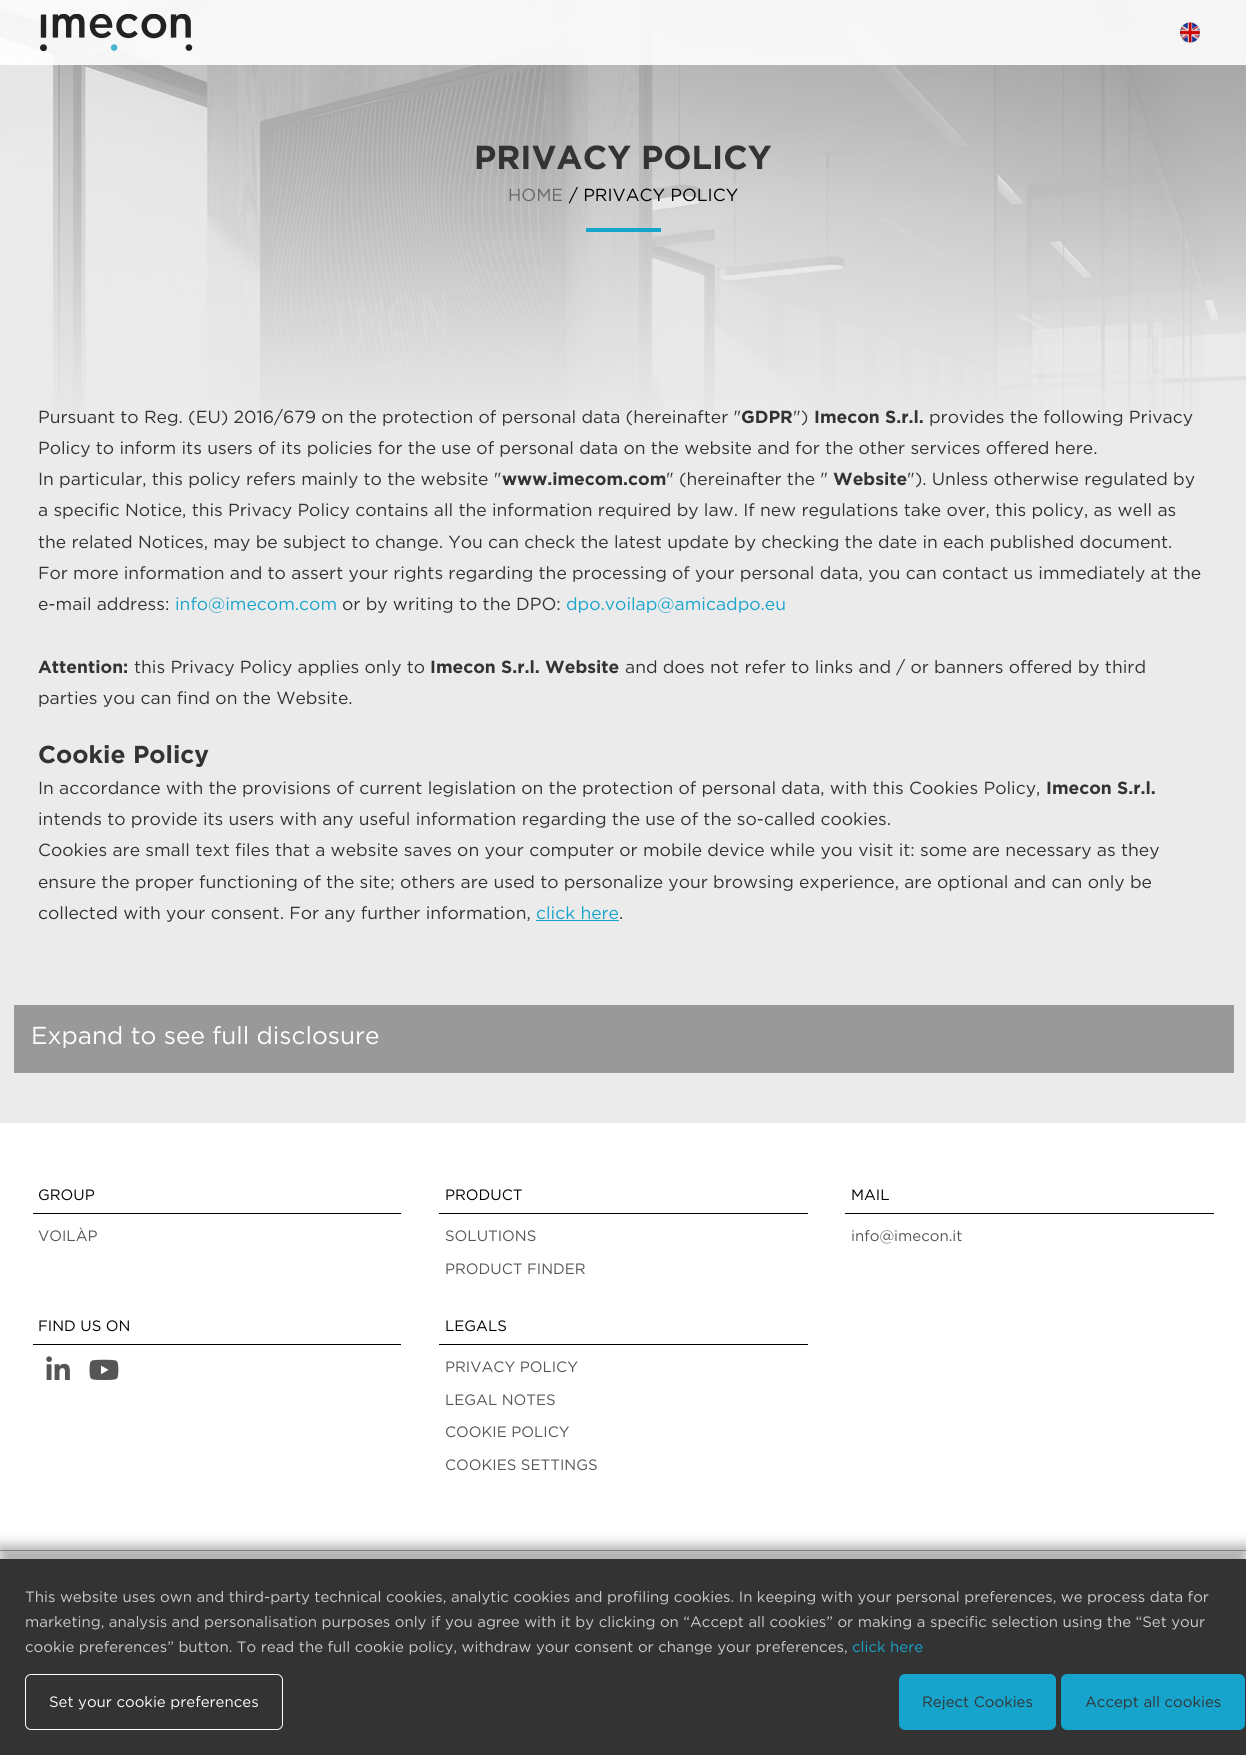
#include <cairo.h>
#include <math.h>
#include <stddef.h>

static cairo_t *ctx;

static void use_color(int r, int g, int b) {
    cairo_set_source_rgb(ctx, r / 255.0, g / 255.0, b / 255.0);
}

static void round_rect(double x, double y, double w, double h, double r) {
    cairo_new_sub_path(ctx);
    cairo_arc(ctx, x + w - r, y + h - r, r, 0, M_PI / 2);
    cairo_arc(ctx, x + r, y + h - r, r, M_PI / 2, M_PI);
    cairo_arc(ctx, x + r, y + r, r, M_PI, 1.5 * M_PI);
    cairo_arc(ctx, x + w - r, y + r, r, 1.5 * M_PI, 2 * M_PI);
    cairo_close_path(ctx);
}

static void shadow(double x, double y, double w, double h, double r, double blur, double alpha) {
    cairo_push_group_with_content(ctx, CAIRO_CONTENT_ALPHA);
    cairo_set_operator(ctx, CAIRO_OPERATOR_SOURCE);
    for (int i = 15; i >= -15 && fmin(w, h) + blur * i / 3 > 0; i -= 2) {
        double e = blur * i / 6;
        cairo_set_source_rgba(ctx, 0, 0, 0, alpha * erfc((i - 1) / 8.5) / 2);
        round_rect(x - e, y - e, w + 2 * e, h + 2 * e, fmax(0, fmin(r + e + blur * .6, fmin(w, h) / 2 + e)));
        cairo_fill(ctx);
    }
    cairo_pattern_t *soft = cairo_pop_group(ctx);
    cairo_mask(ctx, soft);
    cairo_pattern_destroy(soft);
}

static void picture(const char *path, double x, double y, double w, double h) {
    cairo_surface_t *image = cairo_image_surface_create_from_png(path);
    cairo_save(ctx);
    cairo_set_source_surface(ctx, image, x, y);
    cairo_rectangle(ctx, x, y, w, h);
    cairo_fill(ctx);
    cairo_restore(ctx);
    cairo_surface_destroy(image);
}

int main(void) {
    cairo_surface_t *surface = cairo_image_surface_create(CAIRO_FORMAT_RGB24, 1246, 1755);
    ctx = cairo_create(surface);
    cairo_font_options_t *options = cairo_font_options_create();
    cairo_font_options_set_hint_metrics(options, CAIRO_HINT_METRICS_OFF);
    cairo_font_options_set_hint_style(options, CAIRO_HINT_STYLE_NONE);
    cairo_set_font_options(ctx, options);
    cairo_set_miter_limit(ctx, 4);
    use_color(255, 255, 255);
    cairo_paint(ctx);
    picture("img3.png", 0, 0, 1246, 416);
    cairo_set_source_rgba(ctx, 1, 1, 1, 0.9);
    cairo_rectangle(ctx, 0, 0, 1246, 65);
    cairo_fill(ctx);
    picture("img1.png", 40, 14, 153, 37);
    picture("img2.png", 1180, 22, 20, 21);
    use_color(235, 235, 235);
    cairo_rectangle(ctx, 0, 416, 1246, 707);
    cairo_fill(ctx);
    cairo_select_font_face(ctx, "Gotham", CAIRO_FONT_SLANT_NORMAL, CAIRO_FONT_WEIGHT_BOLD);
    cairo_set_font_size(ctx, 33.25);
    use_color(51, 51, 51);
    cairo_move_to(ctx, 474, 169);
    cairo_show_text(ctx, "PRIVACY POLICY");
    cairo_select_font_face(ctx, "Gotham", CAIRO_FONT_SLANT_NORMAL, CAIRO_FONT_WEIGHT_NORMAL);
    cairo_set_font_size(ctx, 17.5);
    use_color(102, 102, 102);
    cairo_move_to(ctx, 508, 201);
    cairo_show_text(ctx, "HOME");
    use_color(0, 0, 0);
    cairo_move_to(ctx, 569, 201);
    cairo_show_text(ctx, "/ PRIVACY POLICY");
    use_color(23, 164, 204);
    cairo_rectangle(ctx, 586, 228, 75, 4);
    cairo_fill(ctx);
    use_color(51, 51, 51);
    cairo_move_to(ctx, 38, 423);
    cairo_show_text(ctx, "Pursuant to Reg. (EU) 2016/679 on the protection of personal data (hereinafter \"");
    cairo_select_font_face(ctx, "Gotham", CAIRO_FONT_SLANT_NORMAL, CAIRO_FONT_WEIGHT_BOLD);
    cairo_move_to(ctx, 741, 423);
    cairo_show_text(ctx, "GDPR");
    cairo_select_font_face(ctx, "Gotham", CAIRO_FONT_SLANT_NORMAL, CAIRO_FONT_WEIGHT_NORMAL);
    cairo_move_to(ctx, 793, 423);
    cairo_show_text(ctx, "\")");
    cairo_select_font_face(ctx, "Gotham", CAIRO_FONT_SLANT_NORMAL, CAIRO_FONT_WEIGHT_BOLD);
    cairo_move_to(ctx, 814, 423);
    cairo_show_text(ctx, "Imecon S.r.l.");
    cairo_select_font_face(ctx, "Gotham", CAIRO_FONT_SLANT_NORMAL, CAIRO_FONT_WEIGHT_NORMAL);
    cairo_move_to(ctx, 929, 423);
    cairo_show_text(ctx, "provides the following Privacy");
    cairo_move_to(ctx, 38, 454);
    cairo_show_text(ctx, "Policy to inform its users of its policies for the use of personal data on the website and for the other services offered here.");
    cairo_move_to(ctx, 38, 485);
    cairo_show_text(ctx, "In particular, this policy refers mainly to the website \"");
    cairo_select_font_face(ctx, "Gotham", CAIRO_FONT_SLANT_NORMAL, CAIRO_FONT_WEIGHT_BOLD);
    cairo_move_to(ctx, 502, 485);
    cairo_show_text(ctx, "www.imecom.com");
    cairo_select_font_face(ctx, "Gotham", CAIRO_FONT_SLANT_NORMAL, CAIRO_FONT_WEIGHT_NORMAL);
    cairo_move_to(ctx, 666, 485);
    cairo_show_text(ctx, "\" (hereinafter the \"");
    cairo_select_font_face(ctx, "Gotham", CAIRO_FONT_SLANT_NORMAL, CAIRO_FONT_WEIGHT_BOLD);
    cairo_move_to(ctx, 833, 485);
    cairo_show_text(ctx, "Website");
    cairo_select_font_face(ctx, "Gotham", CAIRO_FONT_SLANT_NORMAL, CAIRO_FONT_WEIGHT_NORMAL);
    cairo_move_to(ctx, 907, 485);
    cairo_show_text(ctx, "\"). Unless otherwise regulated by");
    cairo_move_to(ctx, 38, 516);
    cairo_show_text(ctx, "a specific Notice, this Privacy Policy contains all the information required by law. If new regulations take over, this policy, as well as");
    cairo_move_to(ctx, 38, 548);
    cairo_show_text(ctx, "the related Notices, may be subject to change. You can check the latest update by checking the date in each published document.");
    cairo_move_to(ctx, 38, 579);
    cairo_show_text(ctx, "For more information and to assert your rights regarding the processing of your personal data, you can contact us immediately at the");
    cairo_move_to(ctx, 38, 610);
    cairo_show_text(ctx, "e-mail address:");
    use_color(23, 164, 204);
    cairo_move_to(ctx, 175, 610);
    cairo_show_text(ctx, "info@imecom.com");
    use_color(51, 51, 51);
    cairo_move_to(ctx, 342, 610);
    cairo_show_text(ctx, "or by writing to the DPO:");
    use_color(23, 164, 204);
    cairo_move_to(ctx, 566, 610);
    cairo_show_text(ctx, "dpo.voilap@amicadpo.eu");
    cairo_select_font_face(ctx, "Gotham", CAIRO_FONT_SLANT_NORMAL, CAIRO_FONT_WEIGHT_BOLD);
    use_color(51, 51, 51);
    cairo_move_to(ctx, 38, 673);
    cairo_show_text(ctx, "Attention:");
    cairo_select_font_face(ctx, "Gotham", CAIRO_FONT_SLANT_NORMAL, CAIRO_FONT_WEIGHT_NORMAL);
    cairo_move_to(ctx, 134, 673);
    cairo_show_text(ctx, "this Privacy Policy applies only to");
    cairo_select_font_face(ctx, "Gotham", CAIRO_FONT_SLANT_NORMAL, CAIRO_FONT_WEIGHT_BOLD);
    cairo_move_to(ctx, 430, 673);
    cairo_show_text(ctx, "Imecon S.r.l. Website");
    cairo_select_font_face(ctx, "Gotham", CAIRO_FONT_SLANT_NORMAL, CAIRO_FONT_WEIGHT_NORMAL);
    cairo_move_to(ctx, 625, 673);
    cairo_show_text(ctx, "and does not refer to links and / or banners offered by third");
    cairo_move_to(ctx, 38, 704);
    cairo_show_text(ctx, "parties you can find on the Website.");
    cairo_select_font_face(ctx, "Gotham", CAIRO_FONT_SLANT_NORMAL, CAIRO_FONT_WEIGHT_BOLD);
    cairo_set_font_size(ctx, 24.5);
    cairo_move_to(ctx, 38, 763);
    cairo_show_text(ctx, "Cookie Policy");
    cairo_select_font_face(ctx, "Gotham", CAIRO_FONT_SLANT_NORMAL, CAIRO_FONT_WEIGHT_NORMAL);
    cairo_set_font_size(ctx, 17.5);
    cairo_move_to(ctx, 38, 794);
    cairo_show_text(ctx, "In accordance with the provisions of current legislation on the protection of personal data, with this Cookies Policy,");
    cairo_select_font_face(ctx, "Gotham", CAIRO_FONT_SLANT_NORMAL, CAIRO_FONT_WEIGHT_BOLD);
    cairo_move_to(ctx, 1046, 794);
    cairo_show_text(ctx, "Imecon S.r.l.");
    cairo_select_font_face(ctx, "Gotham", CAIRO_FONT_SLANT_NORMAL, CAIRO_FONT_WEIGHT_NORMAL);
    cairo_move_to(ctx, 38, 825);
    cairo_show_text(ctx, "intends to provide its users with any useful information regarding the use of the so-called cookies.");
    cairo_move_to(ctx, 38, 856);
    cairo_show_text(ctx, "Cookies are small text files that a website saves on your computer or mobile device while you visit it: some are necessary as they");
    cairo_move_to(ctx, 38, 888);
    cairo_show_text(ctx, "ensure the proper functioning of the site; others are used to personalize your browsing experience, are optional and can only be");
    cairo_move_to(ctx, 38, 919);
    cairo_show_text(ctx, "collected with your consent. For any further information,");
    use_color(23, 164, 204);
    cairo_move_to(ctx, 536, 919);
    cairo_show_text(ctx, "click here");
    cairo_rectangle(ctx, 536, 920, 83, 1);
    cairo_fill(ctx);
    use_color(51, 51, 51);
    cairo_move_to(ctx, 619, 919);
    cairo_show_text(ctx, ".");
    use_color(153, 153, 153);
    cairo_rectangle(ctx, 14, 1005, 1220, 68);
    cairo_fill(ctx);
    cairo_set_font_size(ctx, 24.5);
    use_color(255, 255, 255);
    cairo_move_to(ctx, 31, 1044);
    cairo_show_text(ctx, "Expand to see full disclosure");
    use_color(0, 0, 0);
    cairo_rectangle(ctx, 33, 1213, 368, 1);
    cairo_fill(ctx);
    cairo_set_font_size(ctx, 15);
    cairo_move_to(ctx, 38, 1200);
    cairo_show_text(ctx, "GROUP");
    use_color(85, 85, 85);
    cairo_move_to(ctx, 38, 1241);
    cairo_show_text(ctx, "VOILÀP");
    use_color(0, 0, 0);
    cairo_rectangle(ctx, 439, 1213, 369, 1);
    cairo_fill(ctx);
    cairo_move_to(ctx, 445, 1200);
    cairo_show_text(ctx, "PRODUCT");
    use_color(85, 85, 85);
    cairo_move_to(ctx, 445, 1241);
    cairo_show_text(ctx, "SOLUTIONS");
    cairo_move_to(ctx, 445, 1274);
    cairo_show_text(ctx, "PRODUCT FINDER");
    use_color(0, 0, 0);
    cairo_rectangle(ctx, 845, 1213, 369, 1);
    cairo_fill(ctx);
    cairo_move_to(ctx, 851, 1200);
    cairo_show_text(ctx, "MAIL");
    use_color(85, 85, 85);
    cairo_move_to(ctx, 851, 1241);
    cairo_show_text(ctx, "info@imecon.it");
    use_color(0, 0, 0);
    cairo_rectangle(ctx, 33, 1344, 368, 1);
    cairo_fill(ctx);
    cairo_move_to(ctx, 38, 1331);
    cairo_show_text(ctx, "FIND US ON");
    picture("img4.png", 46, 1356, 24, 24);
    picture("img5.png", 89, 1359, 30, 21);
    cairo_rectangle(ctx, 439, 1344, 369, 1);
    cairo_fill(ctx);
    cairo_move_to(ctx, 445, 1331);
    cairo_show_text(ctx, "LEGALS");
    use_color(85, 85, 85);
    cairo_move_to(ctx, 445, 1372);
    cairo_show_text(ctx, "PRIVACY POLICY");
    cairo_move_to(ctx, 445, 1405);
    cairo_show_text(ctx, "LEGAL NOTES");
    cairo_move_to(ctx, 445, 1437);
    cairo_show_text(ctx, "COOKIE POLICY");
    cairo_move_to(ctx, 445, 1470);
    cairo_show_text(ctx, "COOKIES SETTINGS");
    use_color(168, 168, 168);
    cairo_rectangle(ctx, 0, 1550, 1246, 1);
    cairo_fill(ctx);
    use_color(0, 0, 0);
    shadow(-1, 1545, 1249, 199, 0, 6, 0.3);
    use_color(51, 51, 51);
    cairo_rectangle(ctx, 0, 1559, 1246, 196);
    cairo_fill(ctx);
    use_color(204, 204, 204);
    cairo_move_to(ctx, 25, 1602);
    cairo_show_text(ctx, "This website uses own and third-party technical cookies, analytic cookies and profiling cookies. In keeping with your personal preferences, we process data for");
    cairo_move_to(ctx, 25, 1627);
    cairo_show_text(ctx, "marketing, analysis and personalisation purposes only if you agree with it by clicking on “Accept all cookies” or making a specific selection using the “Set your");
    cairo_move_to(ctx, 25, 1652);
    cairo_show_text(ctx, "cookie preferences” button. To read the full cookie policy, withdraw your consent or change your preferences,");
    use_color(23, 164, 204);
    cairo_move_to(ctx, 852, 1652);
    cairo_show_text(ctx, "click here");
    round_rect(25.5, 1674.5, 257, 55, 5.5);
    use_color(255, 255, 255);
    cairo_set_line_width(ctx, 1);
    cairo_stroke(ctx);
    cairo_move_to(ctx, 49, 1707);
    cairo_show_text(ctx, "Set your cookie preferences");
    use_color(23, 164, 204);
    round_rect(899.5, 1674.5, 156, 55, 5.5);
    cairo_fill_preserve(ctx);
    cairo_stroke(ctx);
    use_color(51, 51, 51);
    cairo_move_to(ctx, 922, 1707);
    cairo_show_text(ctx, "Reject Cookies");
    use_color(23, 164, 204);
    round_rect(1061.5, 1674.5, 183, 55, 5.5);
    cairo_fill_preserve(ctx);
    cairo_stroke(ctx);
    use_color(51, 51, 51);
    cairo_move_to(ctx, 1085, 1707);
    cairo_show_text(ctx, "Accept all cookies");
    cairo_surface_write_to_png(surface, "result.png");
    cairo_font_options_destroy(options);
    cairo_destroy(ctx);
    cairo_surface_destroy(surface);
    return 0;
}
